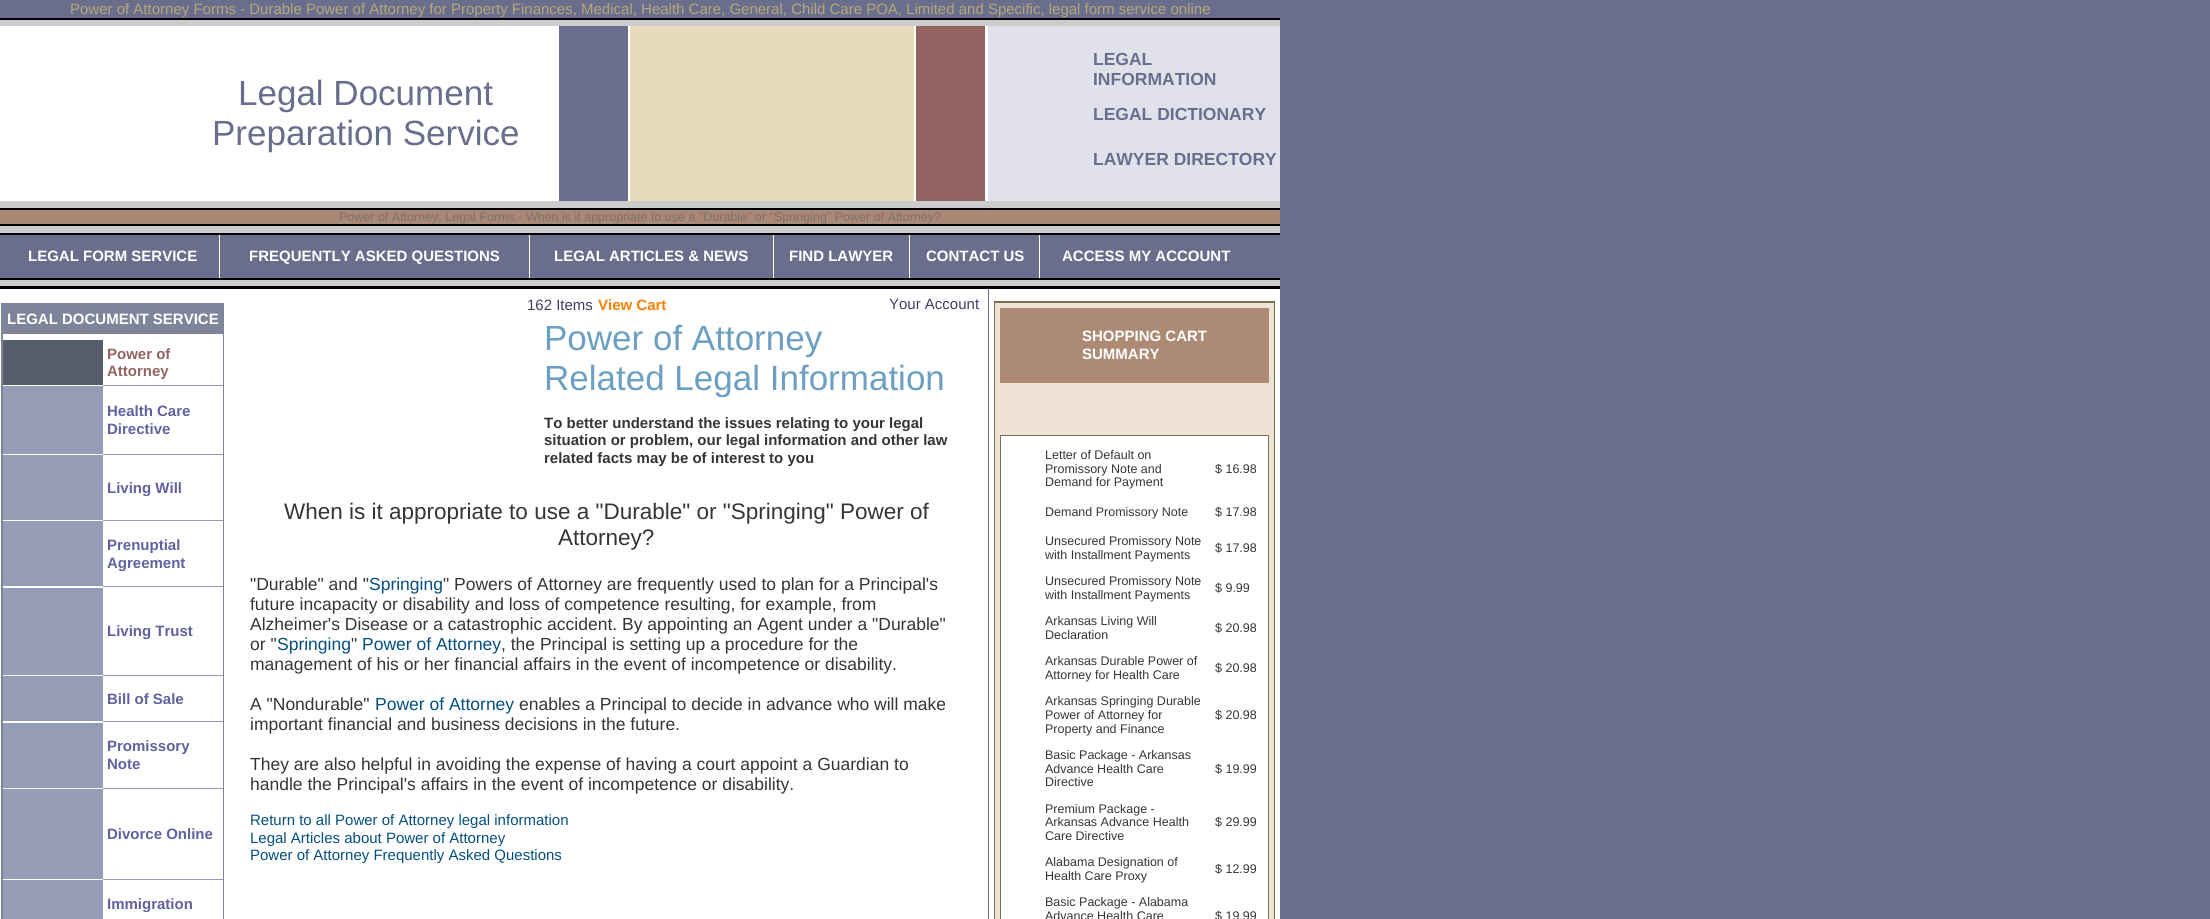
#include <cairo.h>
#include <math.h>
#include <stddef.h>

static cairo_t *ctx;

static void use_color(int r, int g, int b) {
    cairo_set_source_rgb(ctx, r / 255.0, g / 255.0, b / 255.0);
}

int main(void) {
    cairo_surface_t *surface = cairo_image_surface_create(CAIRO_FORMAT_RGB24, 2210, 919);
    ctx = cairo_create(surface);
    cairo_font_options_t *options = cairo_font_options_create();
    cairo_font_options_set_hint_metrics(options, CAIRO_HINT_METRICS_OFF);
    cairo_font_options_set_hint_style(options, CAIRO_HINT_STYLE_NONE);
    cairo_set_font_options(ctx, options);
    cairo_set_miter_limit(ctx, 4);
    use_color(107, 109, 141);
    cairo_paint(ctx);
    cairo_select_font_face(ctx, "Liberation Sans", CAIRO_FONT_SLANT_NORMAL, CAIRO_FONT_WEIGHT_NORMAL);
    cairo_set_font_size(ctx, 15);
    use_color(180, 168, 120);
    cairo_move_to(ctx, 70, 14);
    cairo_show_text(ctx, "Power of Attorney Forms - Durable Power of Attorney for Property Finances, Medical, Health Care, General, Child Care POA, Limited and Specific, legal form service online");
    use_color(0, 0, 0);
    cairo_rectangle(ctx, 0, 18, 1280, 2);
    cairo_fill(ctx);
    use_color(204, 204, 204);
    cairo_rectangle(ctx, 0, 20, 1280, 6);
    cairo_fill(ctx);
    use_color(255, 255, 255);
    cairo_rectangle(ctx, 0, 26, 988, 175);
    cairo_fill(ctx);
    cairo_set_font_size(ctx, 35);
    use_color(107, 109, 141);
    cairo_move_to(ctx, 238, 105);
    cairo_show_text(ctx, "Legal Document");
    cairo_move_to(ctx, 212, 145);
    cairo_show_text(ctx, "Preparation Service");
    cairo_rectangle(ctx, 559, 26, 69, 175);
    cairo_fill(ctx);
    use_color(232, 219, 185);
    cairo_rectangle(ctx, 630, 26, 284, 175);
    cairo_fill(ctx);
    use_color(146, 101, 98);
    cairo_rectangle(ctx, 916, 26, 69, 175);
    cairo_fill(ctx);
    use_color(225, 225, 235);
    cairo_rectangle(ctx, 988, 26, 292, 175);
    cairo_fill(ctx);
    cairo_select_font_face(ctx, "Liberation Sans", CAIRO_FONT_SLANT_NORMAL, CAIRO_FONT_WEIGHT_BOLD);
    cairo_set_font_size(ctx, 17.5);
    use_color(107, 109, 141);
    cairo_move_to(ctx, 1093, 65);
    cairo_show_text(ctx, "LEGAL");
    cairo_move_to(ctx, 1093, 85);
    cairo_show_text(ctx, "INFORMATION");
    cairo_move_to(ctx, 1093, 120);
    cairo_show_text(ctx, "LEGAL DICTIONARY");
    cairo_move_to(ctx, 1093, 165);
    cairo_show_text(ctx, "LAWYER DIRECTORY");
    use_color(204, 204, 204);
    cairo_rectangle(ctx, 0, 201, 1280, 7);
    cairo_fill(ctx);
    use_color(0, 0, 0);
    cairo_rectangle(ctx, 0, 208, 1280, 2);
    cairo_fill(ctx);
    use_color(169, 136, 118);
    cairo_rectangle(ctx, 0, 210, 1280, 14);
    cairo_fill(ctx);
    cairo_select_font_face(ctx, "Liberation Sans", CAIRO_FONT_SLANT_NORMAL, CAIRO_FONT_WEIGHT_NORMAL);
    cairo_set_font_size(ctx, 12.5);
    use_color(127, 112, 103);
    cairo_move_to(ctx, 339, 221);
    cairo_show_text(ctx, "Power of Attorney, Legal Forms - When is it appropriate to use a \"Durable\" or \"Springing\" Power of Attorney?");
    use_color(0, 0, 0);
    cairo_rectangle(ctx, 0, 224, 1280, 2);
    cairo_fill(ctx);
    use_color(204, 204, 204);
    cairo_rectangle(ctx, 0, 226, 1280, 7);
    cairo_fill(ctx);
    use_color(0, 0, 0);
    cairo_rectangle(ctx, 0, 233, 1280, 2);
    cairo_fill(ctx);
    cairo_select_font_face(ctx, "Liberation Sans", CAIRO_FONT_SLANT_NORMAL, CAIRO_FONT_WEIGHT_BOLD);
    cairo_set_font_size(ctx, 15);
    use_color(255, 255, 255);
    cairo_move_to(ctx, 28, 261);
    cairo_show_text(ctx, "LEGAL FORM SERVICE");
    cairo_rectangle(ctx, 219, 235, 1, 43);
    cairo_fill(ctx);
    cairo_move_to(ctx, 249, 261);
    cairo_show_text(ctx, "FREQUENTLY ASKED QUESTIONS");
    cairo_rectangle(ctx, 529, 235, 1, 43);
    cairo_fill(ctx);
    cairo_move_to(ctx, 554, 261);
    cairo_show_text(ctx, "LEGAL ARTICLES & NEWS");
    cairo_rectangle(ctx, 773, 235, 1, 43);
    cairo_fill(ctx);
    cairo_move_to(ctx, 789, 261);
    cairo_show_text(ctx, "FIND LAWYER");
    cairo_rectangle(ctx, 909, 235, 1, 43);
    cairo_fill(ctx);
    cairo_move_to(ctx, 926, 261);
    cairo_show_text(ctx, "CONTACT US");
    cairo_rectangle(ctx, 1039, 235, 1, 43);
    cairo_fill(ctx);
    cairo_move_to(ctx, 1062, 261);
    cairo_show_text(ctx, "ACCESS MY ACCOUNT");
    use_color(0, 0, 0);
    cairo_rectangle(ctx, 0, 278, 1280, 2);
    cairo_fill(ctx);
    use_color(204, 204, 204);
    cairo_rectangle(ctx, 0, 280, 1280, 6);
    cairo_fill(ctx);
    use_color(0, 0, 0);
    cairo_rectangle(ctx, 0, 286, 1280, 3);
    cairo_fill(ctx);
    use_color(255, 255, 255);
    cairo_rectangle(ctx, 0, 289, 988, 630);
    cairo_fill(ctx);
    use_color(126, 132, 154);
    cairo_rectangle(ctx, 1, 303, 223, 616);
    cairo_fill(ctx);
    use_color(255, 255, 255);
    cairo_rectangle(ctx, 3, 334, 220, 585);
    cairo_fill(ctx);
    cairo_move_to(ctx, 7, 324);
    cairo_show_text(ctx, "LEGAL DOCUMENT SERVICE");
    use_color(87, 93, 109);
    cairo_rectangle(ctx, 3, 340, 100, 45);
    cairo_fill(ctx);
    use_color(146, 101, 98);
    cairo_move_to(ctx, 107, 359);
    cairo_show_text(ctx, "Power of");
    cairo_move_to(ctx, 107, 376);
    cairo_show_text(ctx, "Attorney");
    use_color(149, 156, 182);
    cairo_rectangle(ctx, 103, 385, 120, 1);
    cairo_fill(ctx);
    cairo_rectangle(ctx, 3, 386, 100, 68);
    cairo_fill(ctx);
    use_color(97, 97, 160);
    cairo_move_to(ctx, 107, 416);
    cairo_show_text(ctx, "Health Care");
    cairo_move_to(ctx, 107, 434);
    cairo_show_text(ctx, "Directive");
    use_color(149, 156, 182);
    cairo_rectangle(ctx, 103, 454, 120, 1);
    cairo_fill(ctx);
    cairo_rectangle(ctx, 3, 455, 100, 65);
    cairo_fill(ctx);
    use_color(97, 97, 160);
    cairo_move_to(ctx, 107, 493);
    cairo_show_text(ctx, "Living Will");
    use_color(149, 156, 182);
    cairo_rectangle(ctx, 103, 520, 120, 1);
    cairo_fill(ctx);
    cairo_rectangle(ctx, 3, 521, 100, 65);
    cairo_fill(ctx);
    use_color(97, 97, 160);
    cairo_move_to(ctx, 107, 550);
    cairo_show_text(ctx, "Prenuptial");
    cairo_move_to(ctx, 107, 568);
    cairo_show_text(ctx, "Agreement");
    use_color(149, 156, 182);
    cairo_rectangle(ctx, 103, 586, 120, 1);
    cairo_fill(ctx);
    cairo_rectangle(ctx, 3, 588, 100, 87);
    cairo_fill(ctx);
    use_color(97, 97, 160);
    cairo_move_to(ctx, 107, 636);
    cairo_show_text(ctx, "Living Trust");
    use_color(149, 156, 182);
    cairo_rectangle(ctx, 103, 675, 120, 1);
    cairo_fill(ctx);
    cairo_rectangle(ctx, 3, 676, 100, 45);
    cairo_fill(ctx);
    use_color(97, 97, 160);
    cairo_move_to(ctx, 107, 704);
    cairo_show_text(ctx, "Bill of Sale");
    use_color(149, 156, 182);
    cairo_rectangle(ctx, 103, 721, 120, 1);
    cairo_fill(ctx);
    cairo_rectangle(ctx, 3, 723, 100, 65);
    cairo_fill(ctx);
    use_color(97, 97, 160);
    cairo_move_to(ctx, 107, 751);
    cairo_show_text(ctx, "Promissory");
    cairo_move_to(ctx, 107, 769);
    cairo_show_text(ctx, "Note");
    use_color(149, 156, 182);
    cairo_rectangle(ctx, 103, 788, 120, 1);
    cairo_fill(ctx);
    cairo_rectangle(ctx, 3, 789, 100, 90);
    cairo_fill(ctx);
    use_color(97, 97, 160);
    cairo_move_to(ctx, 107, 839);
    cairo_show_text(ctx, "Divorce Online");
    use_color(149, 156, 182);
    cairo_rectangle(ctx, 103, 879, 120, 1);
    cairo_fill(ctx);
    cairo_rectangle(ctx, 3, 880, 100, 39);
    cairo_fill(ctx);
    use_color(97, 97, 160);
    cairo_move_to(ctx, 107, 909);
    cairo_show_text(ctx, "Immigration");
    cairo_select_font_face(ctx, "Liberation Sans", CAIRO_FONT_SLANT_NORMAL, CAIRO_FONT_WEIGHT_NORMAL);
    use_color(62, 62, 98);
    cairo_move_to(ctx, 527, 310);
    cairo_show_text(ctx, "162 Items");
    cairo_select_font_face(ctx, "Liberation Sans", CAIRO_FONT_SLANT_NORMAL, CAIRO_FONT_WEIGHT_BOLD);
    use_color(250, 127, 2);
    cairo_move_to(ctx, 598, 310);
    cairo_show_text(ctx, "View Cart");
    cairo_select_font_face(ctx, "Liberation Sans", CAIRO_FONT_SLANT_NORMAL, CAIRO_FONT_WEIGHT_NORMAL);
    use_color(62, 62, 98);
    cairo_move_to(ctx, 889, 309);
    cairo_show_text(ctx, "Your Account");
    cairo_set_font_size(ctx, 35);
    use_color(108, 160, 194);
    cairo_move_to(ctx, 544, 350);
    cairo_show_text(ctx, "Power of Attorney");
    cairo_move_to(ctx, 544, 390);
    cairo_show_text(ctx, "Related Legal Information");
    cairo_select_font_face(ctx, "Liberation Sans", CAIRO_FONT_SLANT_NORMAL, CAIRO_FONT_WEIGHT_BOLD);
    cairo_set_font_size(ctx, 15);
    use_color(53, 53, 53);
    cairo_move_to(ctx, 544, 428);
    cairo_show_text(ctx, "To better understand the issues relating to your legal");
    cairo_move_to(ctx, 544, 445);
    cairo_show_text(ctx, "situation or problem, our legal information and other law");
    cairo_move_to(ctx, 544, 463);
    cairo_show_text(ctx, "related facts may be of interest to you");
    cairo_select_font_face(ctx, "Liberation Sans", CAIRO_FONT_SLANT_NORMAL, CAIRO_FONT_WEIGHT_NORMAL);
    cairo_set_font_size(ctx, 22.5);
    cairo_move_to(ctx, 284, 519);
    cairo_show_text(ctx, "When is it appropriate to use a \"Durable\" or \"Springing\" Power of");
    cairo_move_to(ctx, 558, 545);
    cairo_show_text(ctx, "Attorney?");
    cairo_set_font_size(ctx, 17.5);
    cairo_move_to(ctx, 250, 590);
    cairo_show_text(ctx, "\"Durable\" and \"");
    use_color(4, 79, 128);
    cairo_move_to(ctx, 369, 590);
    cairo_show_text(ctx, "Springing");
    use_color(53, 53, 53);
    cairo_move_to(ctx, 443, 590);
    cairo_show_text(ctx, "\" Powers of Attorney are frequently used to plan for a Principal's");
    cairo_move_to(ctx, 250, 610);
    cairo_show_text(ctx, "future incapacity or disability and loss of competence resulting, for example, from");
    cairo_move_to(ctx, 250, 630);
    cairo_show_text(ctx, "Alzheimer's Disease or a catastrophic accident. By appointing an Agent under a \"Durable\"");
    cairo_move_to(ctx, 250, 650);
    cairo_show_text(ctx, "or \"");
    use_color(4, 79, 128);
    cairo_move_to(ctx, 277, 650);
    cairo_show_text(ctx, "Springing");
    use_color(53, 53, 53);
    cairo_move_to(ctx, 351, 650);
    cairo_show_text(ctx, "\"");
    use_color(4, 79, 128);
    cairo_move_to(ctx, 362, 650);
    cairo_show_text(ctx, "Power of Attorney");
    use_color(53, 53, 53);
    cairo_move_to(ctx, 501, 650);
    cairo_show_text(ctx, ", the Principal is setting up a procedure for the");
    cairo_move_to(ctx, 250, 670);
    cairo_show_text(ctx, "management of his or her financial affairs in the event of incompetence or disability.");
    cairo_move_to(ctx, 250, 710);
    cairo_show_text(ctx, "A \"Nondurable\"");
    use_color(4, 79, 128);
    cairo_move_to(ctx, 375, 710);
    cairo_show_text(ctx, "Power of Attorney");
    use_color(53, 53, 53);
    cairo_move_to(ctx, 519, 710);
    cairo_show_text(ctx, "enables a Principal to decide in advance who will make");
    cairo_move_to(ctx, 250, 730);
    cairo_show_text(ctx, "important financial and business decisions in the future.");
    cairo_move_to(ctx, 250, 770);
    cairo_show_text(ctx, "They are also helpful in avoiding the expense of having a court appoint a Guardian to");
    cairo_move_to(ctx, 250, 790);
    cairo_show_text(ctx, "handle the Principal's affairs in the event of incompetence or disability.");
    cairo_set_font_size(ctx, 15);
    use_color(4, 79, 128);
    cairo_move_to(ctx, 250, 825);
    cairo_show_text(ctx, "Return to all Power of Attorney legal information");
    cairo_move_to(ctx, 250, 843);
    cairo_show_text(ctx, "Legal Articles about Power of Attorney");
    cairo_move_to(ctx, 250, 860);
    cairo_show_text(ctx, "Power of Attorney Frequently Asked Questions");
    use_color(255, 255, 255);
    cairo_rectangle(ctx, 989, 289, 5, 630);
    cairo_fill(ctx);
    cairo_rectangle(ctx, 994, 289, 281, 12);
    cairo_fill(ctx);
    use_color(123, 109, 82);
    cairo_rectangle(ctx, 994, 301, 281, 618);
    cairo_fill(ctx);
    use_color(239, 227, 214);
    cairo_rectangle(ctx, 995, 303, 279, 616);
    cairo_fill(ctx);
    use_color(173, 138, 115);
    cairo_rectangle(ctx, 1000, 308, 269, 75);
    cairo_fill(ctx);
    cairo_select_font_face(ctx, "Liberation Sans", CAIRO_FONT_SLANT_NORMAL, CAIRO_FONT_WEIGHT_BOLD);
    use_color(255, 255, 255);
    cairo_move_to(ctx, 1082, 341);
    cairo_show_text(ctx, "SHOPPING CART");
    cairo_move_to(ctx, 1082, 359);
    cairo_show_text(ctx, "SUMMARY");
    use_color(123, 109, 82);
    cairo_rectangle(ctx, 1000, 435, 269, 484);
    cairo_fill(ctx);
    use_color(255, 255, 255);
    cairo_rectangle(ctx, 1001, 436, 267, 483);
    cairo_fill(ctx);
    cairo_select_font_face(ctx, "Liberation Sans", CAIRO_FONT_SLANT_NORMAL, CAIRO_FONT_WEIGHT_NORMAL);
    cairo_set_font_size(ctx, 12.5);
    use_color(53, 53, 53);
    cairo_move_to(ctx, 1045, 459);
    cairo_show_text(ctx, "Letter of Default on");
    cairo_move_to(ctx, 1045, 473);
    cairo_show_text(ctx, "Promissory Note and");
    cairo_move_to(ctx, 1045, 486);
    cairo_show_text(ctx, "Demand for Payment");
    cairo_move_to(ctx, 1215, 473);
    cairo_show_text(ctx, "$ 16.98");
    cairo_move_to(ctx, 1045, 516);
    cairo_show_text(ctx, "Demand Promissory Note");
    cairo_move_to(ctx, 1215, 516);
    cairo_show_text(ctx, "$ 17.98");
    cairo_move_to(ctx, 1045, 545);
    cairo_show_text(ctx, "Unsecured Promissory Note");
    cairo_move_to(ctx, 1045, 559);
    cairo_show_text(ctx, "with Installment Payments");
    cairo_move_to(ctx, 1215, 552);
    cairo_show_text(ctx, "$ 17.98");
    cairo_move_to(ctx, 1045, 585);
    cairo_show_text(ctx, "Unsecured Promissory Note");
    cairo_move_to(ctx, 1045, 599);
    cairo_show_text(ctx, "with Installment Payments");
    cairo_move_to(ctx, 1215, 592);
    cairo_show_text(ctx, "$ 9.99");
    cairo_move_to(ctx, 1045, 625);
    cairo_show_text(ctx, "Arkansas Living Will");
    cairo_move_to(ctx, 1045, 639);
    cairo_show_text(ctx, "Declaration");
    cairo_move_to(ctx, 1215, 632);
    cairo_show_text(ctx, "$ 20.98");
    cairo_move_to(ctx, 1045, 665);
    cairo_show_text(ctx, "Arkansas Durable Power of");
    cairo_move_to(ctx, 1045, 679);
    cairo_show_text(ctx, "Attorney for Health Care");
    cairo_move_to(ctx, 1215, 672);
    cairo_show_text(ctx, "$ 20.98");
    cairo_move_to(ctx, 1045, 705);
    cairo_show_text(ctx, "Arkansas Springing Durable");
    cairo_move_to(ctx, 1045, 719);
    cairo_show_text(ctx, "Power of Attorney for");
    cairo_move_to(ctx, 1045, 733);
    cairo_show_text(ctx, "Property and Finance");
    cairo_move_to(ctx, 1215, 719);
    cairo_show_text(ctx, "$ 20.98");
    cairo_move_to(ctx, 1045, 759);
    cairo_show_text(ctx, "Basic Package - Arkansas");
    cairo_move_to(ctx, 1045, 773);
    cairo_show_text(ctx, "Advance Health Care");
    cairo_move_to(ctx, 1045, 786);
    cairo_show_text(ctx, "Directive");
    cairo_move_to(ctx, 1215, 773);
    cairo_show_text(ctx, "$ 19.99");
    cairo_move_to(ctx, 1045, 813);
    cairo_show_text(ctx, "Premium Package -");
    cairo_move_to(ctx, 1045, 826);
    cairo_show_text(ctx, "Arkansas Advance Health");
    cairo_move_to(ctx, 1045, 840);
    cairo_show_text(ctx, "Care Directive");
    cairo_move_to(ctx, 1215, 826);
    cairo_show_text(ctx, "$ 29.99");
    cairo_move_to(ctx, 1045, 866);
    cairo_show_text(ctx, "Alabama Designation of");
    cairo_move_to(ctx, 1045, 880);
    cairo_show_text(ctx, "Health Care Proxy");
    cairo_move_to(ctx, 1215, 873);
    cairo_show_text(ctx, "$ 12.99");
    cairo_move_to(ctx, 1045, 906);
    cairo_show_text(ctx, "Basic Package - Alabama");
    cairo_move_to(ctx, 1045, 920);
    cairo_show_text(ctx, "Advance Health Care");
    cairo_move_to(ctx, 1215, 920);
    cairo_show_text(ctx, "$ 19.99");
    use_color(255, 255, 255);
    cairo_rectangle(ctx, 1275, 289, 5, 630);
    cairo_fill(ctx);
    cairo_surface_write_to_png(surface, "result.png");
    cairo_font_options_destroy(options);
    cairo_destroy(ctx);
    cairo_surface_destroy(surface);
    return 0;
}
